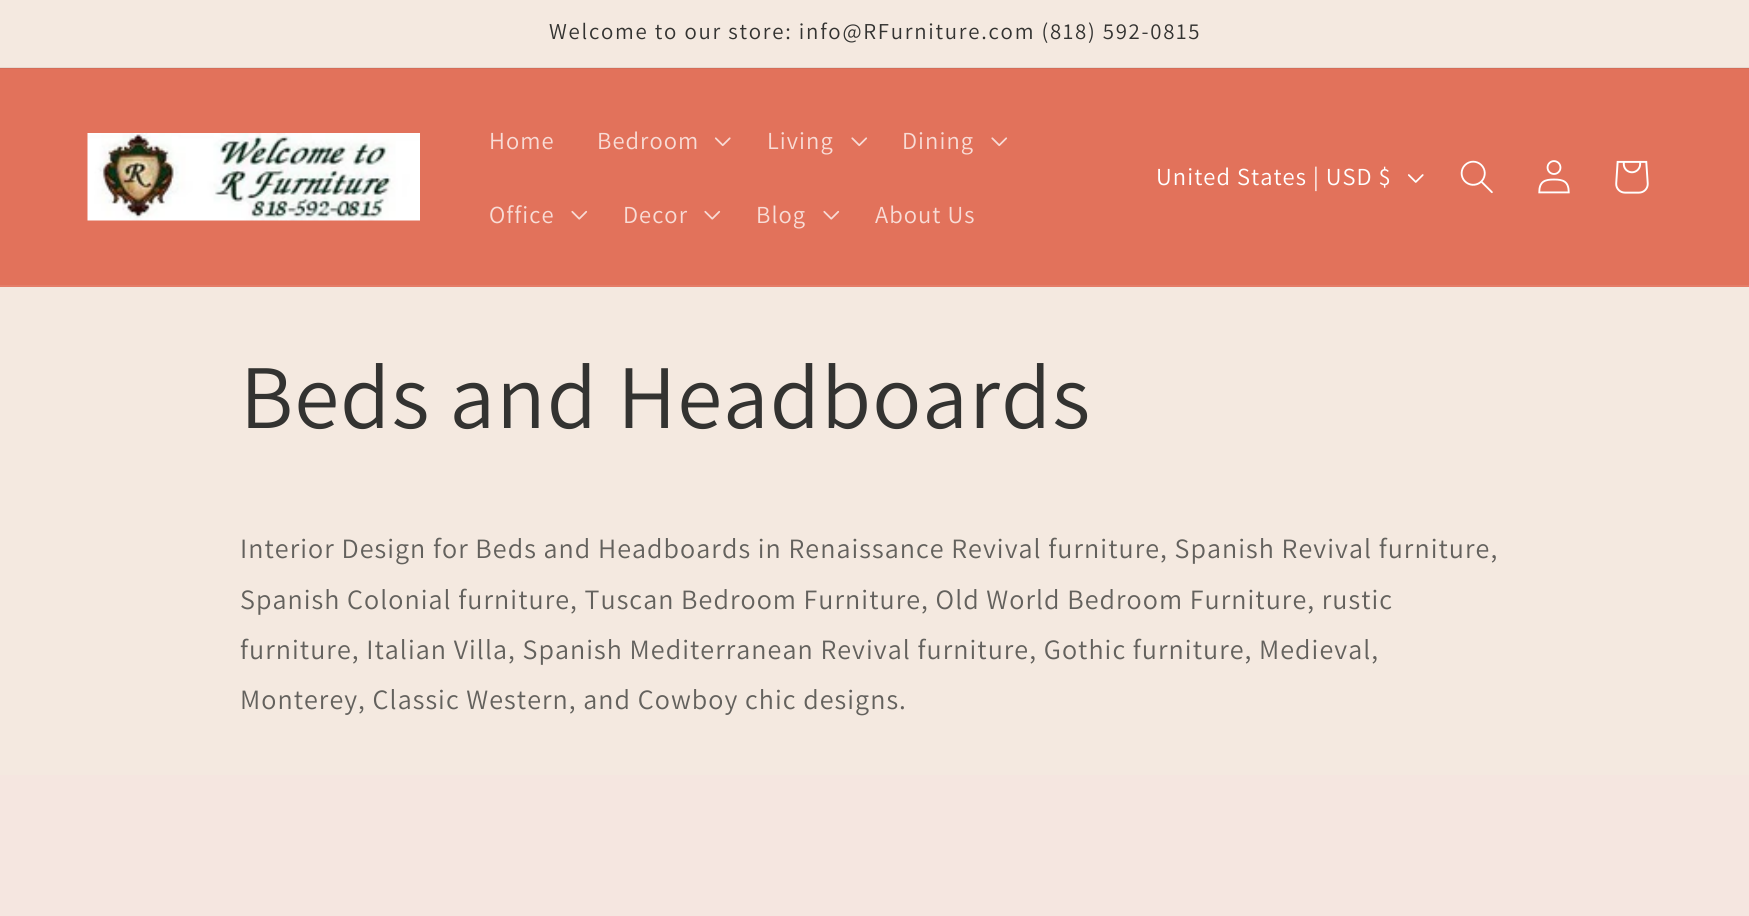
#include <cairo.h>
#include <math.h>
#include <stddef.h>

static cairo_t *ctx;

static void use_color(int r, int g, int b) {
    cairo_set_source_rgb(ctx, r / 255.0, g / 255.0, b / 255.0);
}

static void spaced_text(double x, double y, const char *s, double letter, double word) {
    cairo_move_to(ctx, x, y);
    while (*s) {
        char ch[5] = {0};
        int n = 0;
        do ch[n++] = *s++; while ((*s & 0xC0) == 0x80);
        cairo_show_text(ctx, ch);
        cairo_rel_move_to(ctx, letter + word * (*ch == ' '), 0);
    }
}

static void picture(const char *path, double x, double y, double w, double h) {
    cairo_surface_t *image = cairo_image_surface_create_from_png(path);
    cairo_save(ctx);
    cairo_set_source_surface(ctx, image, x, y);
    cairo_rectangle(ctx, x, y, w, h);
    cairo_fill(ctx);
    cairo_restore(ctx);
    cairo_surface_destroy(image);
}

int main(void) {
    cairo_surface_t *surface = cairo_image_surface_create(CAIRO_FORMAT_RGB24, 1749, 916);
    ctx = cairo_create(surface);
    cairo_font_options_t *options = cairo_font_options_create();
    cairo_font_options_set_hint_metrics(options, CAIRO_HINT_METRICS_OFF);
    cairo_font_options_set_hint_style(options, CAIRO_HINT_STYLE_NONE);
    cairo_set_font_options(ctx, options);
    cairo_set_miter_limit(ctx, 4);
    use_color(244, 233, 224);
    cairo_paint(ctx);
    use_color(229, 218, 210);
    cairo_rectangle(ctx, 0, 67, 1749, 1);
    cairo_fill(ctx);
    cairo_select_font_face(ctx, "Assistant", CAIRO_FONT_SLANT_NORMAL, CAIRO_FONT_WEIGHT_NORMAL);
    cairo_set_font_size(ctx, 22.75);
    use_color(51, 51, 49);
    spaced_text(549, 39, "Welcome to our store: info@RFurniture.com (818) 592-0815", 1.75, 0);
    use_color(226, 114, 91);
    cairo_rectangle(ctx, 0, 69, 1749, 216);
    cairo_fill(ctx);
    use_color(212, 109, 88);
    cairo_rectangle(ctx, 0, 68, 1749, 1);
    cairo_fill(ctx);
    use_color(228, 125, 104);
    cairo_rectangle(ctx, 0, 285, 1749, 2);
    cairo_fill(ctx);
    picture("img1.png", 87, 133, 333, 88);
    cairo_set_font_size(ctx, 24.5);
    use_color(248, 220, 214);
    spaced_text(489, 149, "Home", 1.05, 0);
    spaced_text(597, 149, "Bedroom", 1.05, 0);
    picture("img2.png", 714, 137, 17, 10);
    spaced_text(767, 149, "Living", 1.05, 0);
    picture("img3.png", 851, 137, 17, 10);
    spaced_text(902, 149, "Dining", 1.05, 0);
    picture("img3.png", 991, 137, 17, 10);
    spaced_text(489, 223, "Office", 1.05, 0);
    picture("img4.png", 571, 210, 17, 10);
    spaced_text(623, 223, "Decor", 1.05, 0);
    picture("img4.png", 704, 210, 17, 10);
    spaced_text(756, 223, "Blog", 1.05, 0);
    picture("img4.png", 823, 210, 17, 10);
    spaced_text(875, 223, "About Us", 1.05, 0);
    use_color(255, 255, 255);
    spaced_text(1156, 185, "United States | USD $", 1.05, 0);
    picture("img5.png", 1408, 174, 16, 9);
    picture("img6.png", 1460, 160, 33, 34);
    picture("img7.png", 1538, 160, 32, 34);
    picture("img8.png", 1615, 160, 34, 34);
    cairo_set_font_size(ctx, 91);
    use_color(51, 51, 49);
    spaced_text(240, 428, "Beds and Headboards", 1.05, 0);
    cairo_set_font_size(ctx, 28);
    use_color(99, 97, 93);
    spaced_text(240, 558, "Interior Design for Beds and Headboards in Renaissance Revival furniture, Spanish Revival furniture,", 1.05, 0);
    spaced_text(240, 609, "Spanish Colonial furniture, Tuscan Bedroom Furniture, Old World Bedroom Furniture, rustic", 1.05, 0);
    spaced_text(240, 659, "furniture, Italian Villa, Spanish Mediterranean Revival furniture, Gothic furniture, Medieval,", 1.05, 0);
    spaced_text(240, 709, "Monterey, Classic Western, and Cowboy chic designs.", 1.05, 0);
    use_color(245, 230, 224);
    cairo_rectangle(ctx, 0, 775, 1749, 141);
    cairo_fill(ctx);
    cairo_surface_write_to_png(surface, "result.png");
    cairo_font_options_destroy(options);
    cairo_destroy(ctx);
    cairo_surface_destroy(surface);
    return 0;
}
